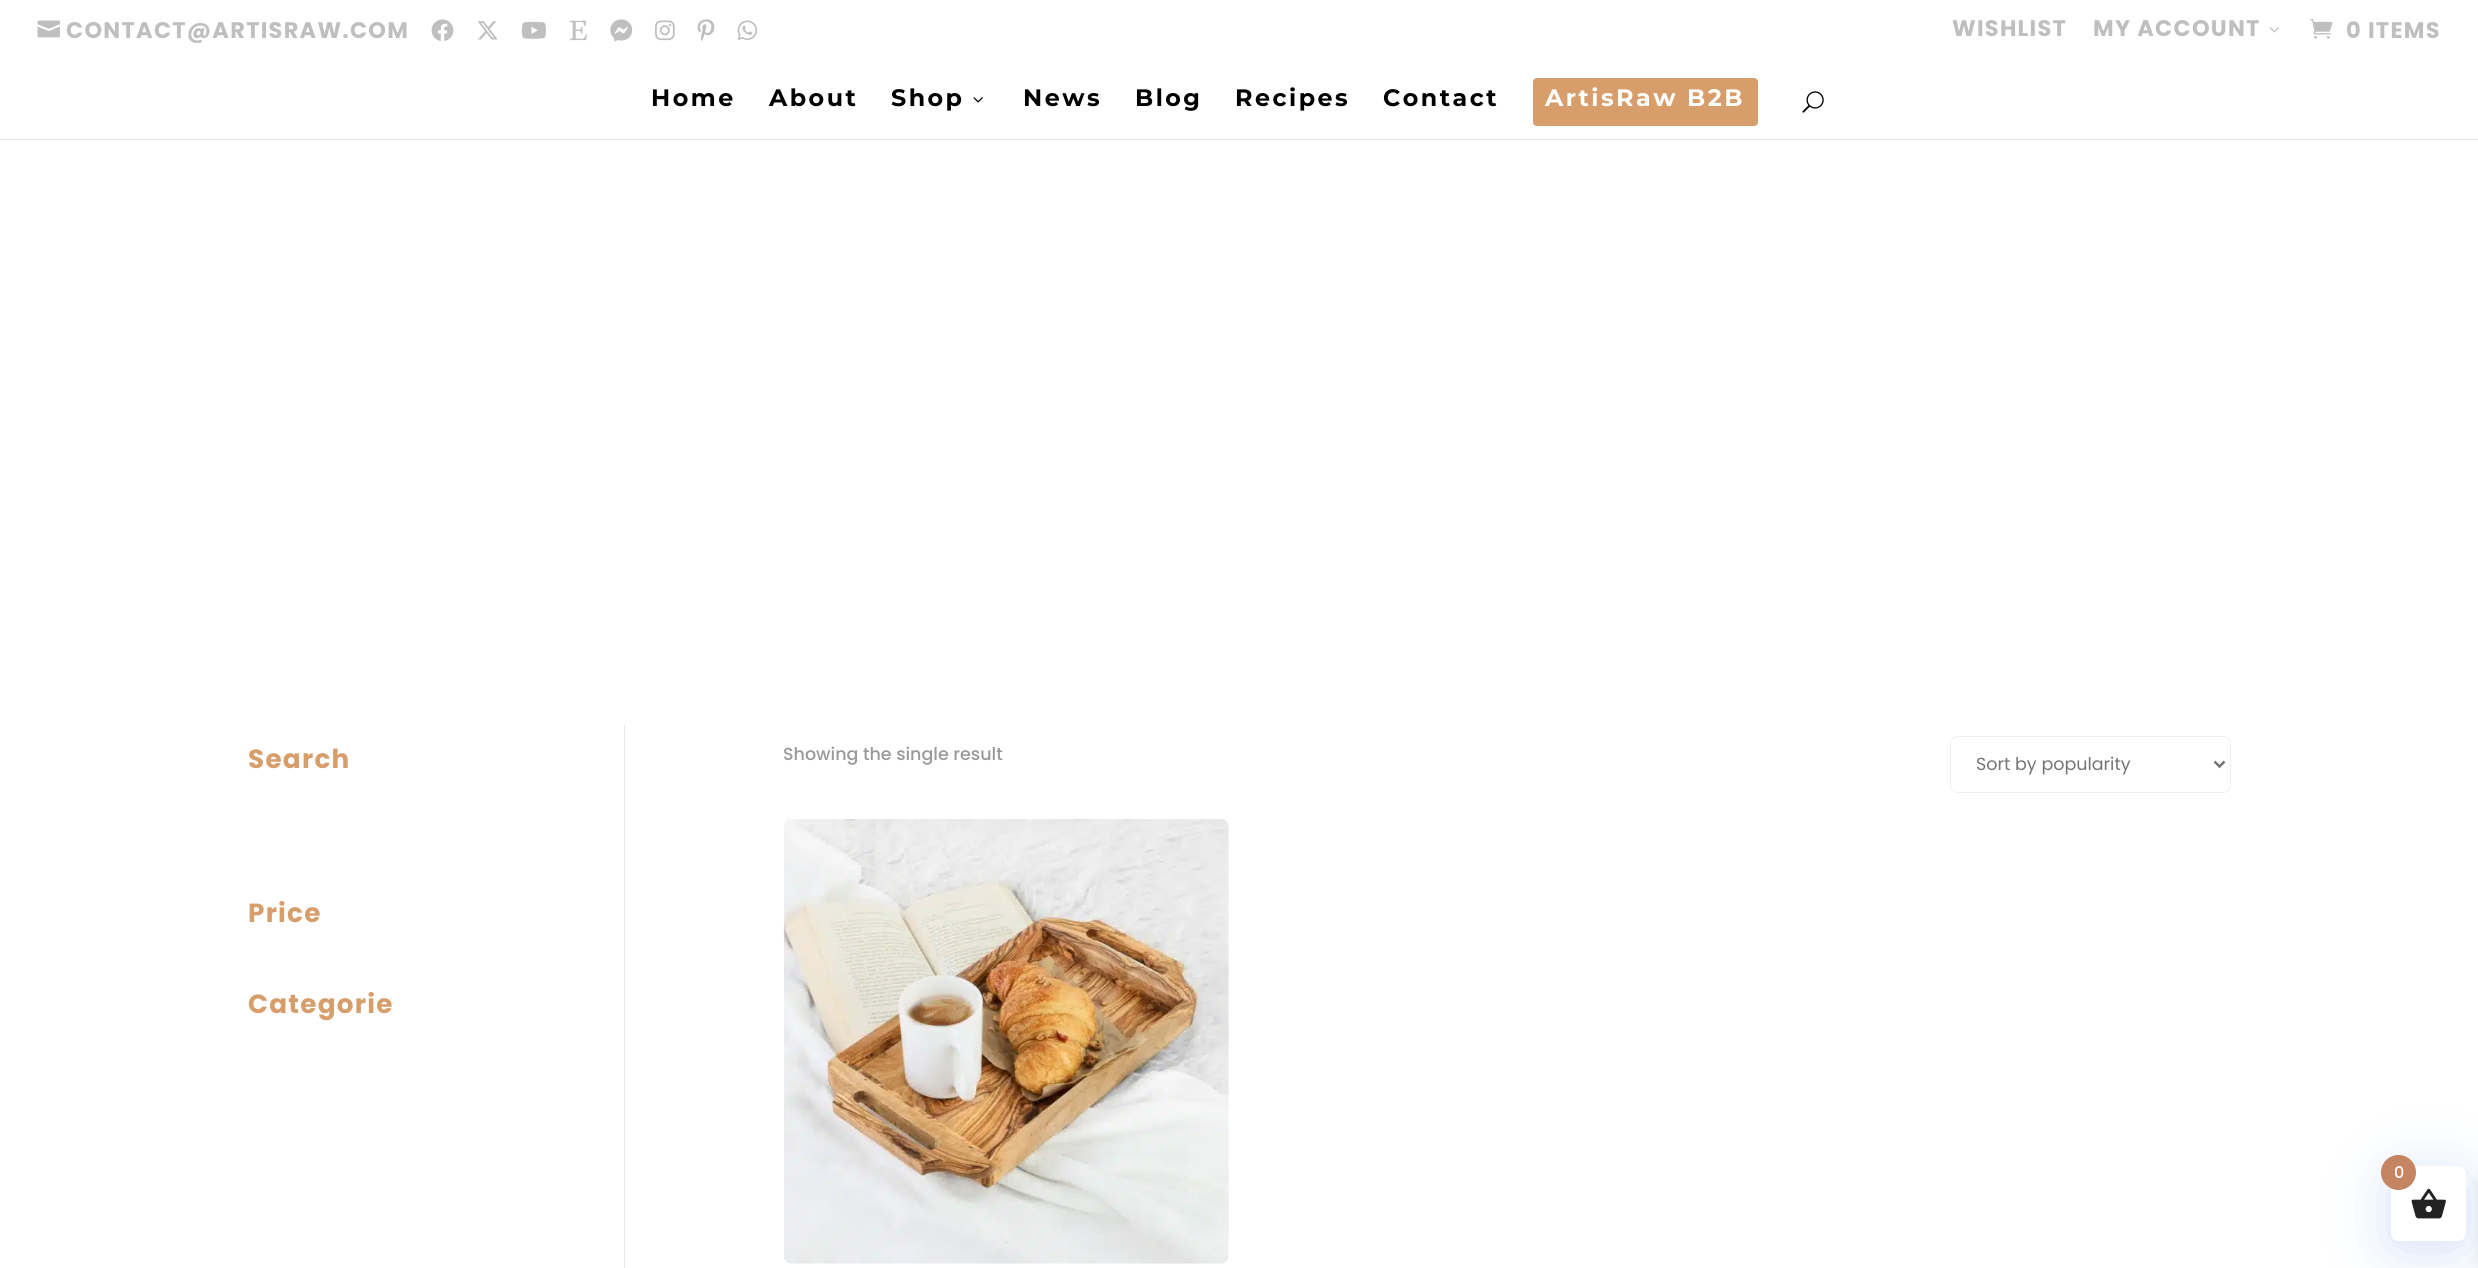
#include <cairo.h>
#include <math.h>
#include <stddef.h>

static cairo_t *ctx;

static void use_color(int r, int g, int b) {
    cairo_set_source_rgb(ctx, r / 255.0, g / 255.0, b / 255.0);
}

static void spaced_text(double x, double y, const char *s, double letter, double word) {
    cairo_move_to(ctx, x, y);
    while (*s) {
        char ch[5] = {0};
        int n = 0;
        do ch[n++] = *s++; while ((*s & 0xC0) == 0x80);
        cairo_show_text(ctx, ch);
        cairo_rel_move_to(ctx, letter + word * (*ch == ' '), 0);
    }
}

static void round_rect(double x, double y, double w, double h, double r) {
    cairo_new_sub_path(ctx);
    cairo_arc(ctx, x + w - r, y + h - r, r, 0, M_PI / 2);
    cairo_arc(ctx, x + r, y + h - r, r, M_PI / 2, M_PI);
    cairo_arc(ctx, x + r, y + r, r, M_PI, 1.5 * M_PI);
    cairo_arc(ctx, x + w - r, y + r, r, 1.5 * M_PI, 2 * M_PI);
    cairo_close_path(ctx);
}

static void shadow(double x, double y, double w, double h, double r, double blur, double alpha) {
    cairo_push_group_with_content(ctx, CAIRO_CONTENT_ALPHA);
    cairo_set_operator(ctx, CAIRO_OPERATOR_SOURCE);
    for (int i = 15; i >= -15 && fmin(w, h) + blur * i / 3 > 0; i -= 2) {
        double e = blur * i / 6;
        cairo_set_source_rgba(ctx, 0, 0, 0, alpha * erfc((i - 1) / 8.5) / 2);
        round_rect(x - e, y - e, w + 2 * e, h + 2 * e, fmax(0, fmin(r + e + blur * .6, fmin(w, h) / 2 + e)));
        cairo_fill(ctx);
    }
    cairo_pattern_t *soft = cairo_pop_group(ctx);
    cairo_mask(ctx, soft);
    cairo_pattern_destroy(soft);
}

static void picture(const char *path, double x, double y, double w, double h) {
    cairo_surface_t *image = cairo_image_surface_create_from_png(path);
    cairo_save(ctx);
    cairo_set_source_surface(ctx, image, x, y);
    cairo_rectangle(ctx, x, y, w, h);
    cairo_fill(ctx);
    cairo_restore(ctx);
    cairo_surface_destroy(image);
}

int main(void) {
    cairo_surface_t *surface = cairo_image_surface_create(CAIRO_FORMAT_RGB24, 2478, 1268);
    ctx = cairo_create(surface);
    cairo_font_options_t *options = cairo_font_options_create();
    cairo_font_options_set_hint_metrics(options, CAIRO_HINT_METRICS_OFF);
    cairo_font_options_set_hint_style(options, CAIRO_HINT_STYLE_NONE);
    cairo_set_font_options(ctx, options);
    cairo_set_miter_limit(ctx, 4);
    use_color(255, 255, 255);
    cairo_paint(ctx);
    picture("img1.png", 37, 20, 23, 18);
    cairo_select_font_face(ctx, "Poppins", CAIRO_FONT_SLANT_NORMAL, CAIRO_FONT_WEIGHT_BOLD);
    cairo_set_font_size(ctx, 22.5);
    use_color(191, 191, 191);
    spaced_text(66, 38, "CONTACT@ARTISRAW.COM", 1.25, 0);
    picture("img2.png", 431, 19, 23, 22);
    picture("img3.png", 477, 21, 21, 19);
    picture("img4.png", 521, 21, 25, 18);
    picture("img5.png", 570, 20, 17, 21);
    picture("img6.png", 610, 19, 23, 23);
    picture("img7.png", 655, 20, 20, 21);
    picture("img8.png", 697, 19, 18, 23);
    picture("img9.png", 737, 20, 21, 20);
    spaced_text(1952, 36, "WISHLIST", 1.25, 0);
    spaced_text(2093, 36, "MY ACCOUNT", 1.25, 0);
    picture("img10.png", 2269, 27, 10, 6);
    picture("img11.png", 2310, 19, 23, 20);
    spaced_text(2346, 38, "0 ITEMS", 1.25, 0);
    use_color(230, 230, 230);
    cairo_new_path(ctx);
    cairo_move_to(ctx, 0, 139);
    cairo_line_to(ctx, 0, 140);
    cairo_line_to(ctx, 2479, 140);
    cairo_line_to(ctx, 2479, 60);
    cairo_line_to(ctx, 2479, 139);
    cairo_close_path(ctx);
    cairo_fill(ctx);
    cairo_select_font_face(ctx, "Montserrat", CAIRO_FONT_SLANT_NORMAL, CAIRO_FONT_WEIGHT_BOLD);
    cairo_set_font_size(ctx, 23.75);
    use_color(0, 0, 0);
    spaced_text(651, 106, "Home", 2.5, 0);
    spaced_text(769, 106, "About", 2.5, 0);
    spaced_text(891, 106, "Shop", 2.5, 0);
    picture("img12.png", 973, 97, 10, 6);
    spaced_text(1023, 106, "News", 2.5, 0);
    spaced_text(1135, 106, "Blog", 2.5, 0);
    spaced_text(1235, 106, "Recipes", 2.5, 0);
    spaced_text(1383, 106, "Contact", 2.5, 0);
    use_color(215, 157, 106);
    round_rect(1533, 78, 225, 48, 4);
    cairo_fill(ctx);
    use_color(255, 255, 255);
    spaced_text(1545, 106, "ArtisRaw B2B", 2.5, 0);
    picture("img13.png", 1802, 91, 22, 22);
    use_color(230, 230, 230);
    cairo_rectangle(ctx, 624, 725, 1, 543);
    cairo_fill(ctx);
    cairo_select_font_face(ctx, "Poppins", CAIRO_FONT_SLANT_NORMAL, CAIRO_FONT_WEIGHT_BOLD);
    cairo_set_font_size(ctx, 26.25);
    use_color(215, 157, 106);
    spaced_text(248, 768, "Search", 1.25, 0);
    spaced_text(248, 922, "Price", 1.25, 0);
    spaced_text(248, 1013, "Categorie", 1.25, 0);
    cairo_select_font_face(ctx, "Poppins Medium", CAIRO_FONT_SLANT_NORMAL, CAIRO_FONT_WEIGHT_NORMAL);
    cairo_set_font_size(ctx, 17.5);
    use_color(153, 153, 153);
    cairo_move_to(ctx, 783, 760);
    cairo_show_text(ctx, "Showing the single result");
    round_rect(1950.5, 736.5, 280, 56, 7.5);
    use_color(239, 239, 239);
    cairo_set_line_width(ctx, 1);
    cairo_stroke(ctx);
    cairo_new_path(ctx);
    cairo_move_to(ctx, 2214.5, 761.5);
    cairo_line_to(ctx, 2219.5, 766.5);
    cairo_line_to(ctx, 2224.5, 761.5);
    use_color(117, 117, 117);
    cairo_set_line_width(ctx, 2.5);
    cairo_stroke(ctx);
    cairo_select_font_face(ctx, "Poppins", CAIRO_FONT_SLANT_NORMAL, CAIRO_FONT_WEIGHT_NORMAL);
    cairo_move_to(ctx, 1976, 770);
    cairo_show_text(ctx, "Sort by popularity");
    picture("img14.png", 783, 819, 446, 445);
    use_color(41, 100, 216);
    shadow(2391, 1175, 75, 75, 8, 31, 0.2);
    use_color(0, 0, 0);
    shadow(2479, 1179, 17, 84, 0, 6, 0.1);
    use_color(255, 255, 255);
    round_rect(2391, 1166, 75, 75, 8);
    cairo_fill(ctx);
    picture("img15.png", 2411, 1188, 35, 31);
    use_color(197, 132, 98);
    cairo_arc(ctx, 2398.5, 1172.5, 17.5, 0, 2 * M_PI);
    cairo_fill(ctx);
    cairo_select_font_face(ctx, "Poppins Medium", CAIRO_FONT_SLANT_NORMAL, CAIRO_FONT_WEIGHT_NORMAL);
    cairo_set_font_size(ctx, 16);
    use_color(255, 255, 255);
    cairo_move_to(ctx, 2394, 1178);
    cairo_show_text(ctx, "0");
    cairo_surface_write_to_png(surface, "result.png");
    cairo_font_options_destroy(options);
    cairo_destroy(ctx);
    cairo_surface_destroy(surface);
    return 0;
}
